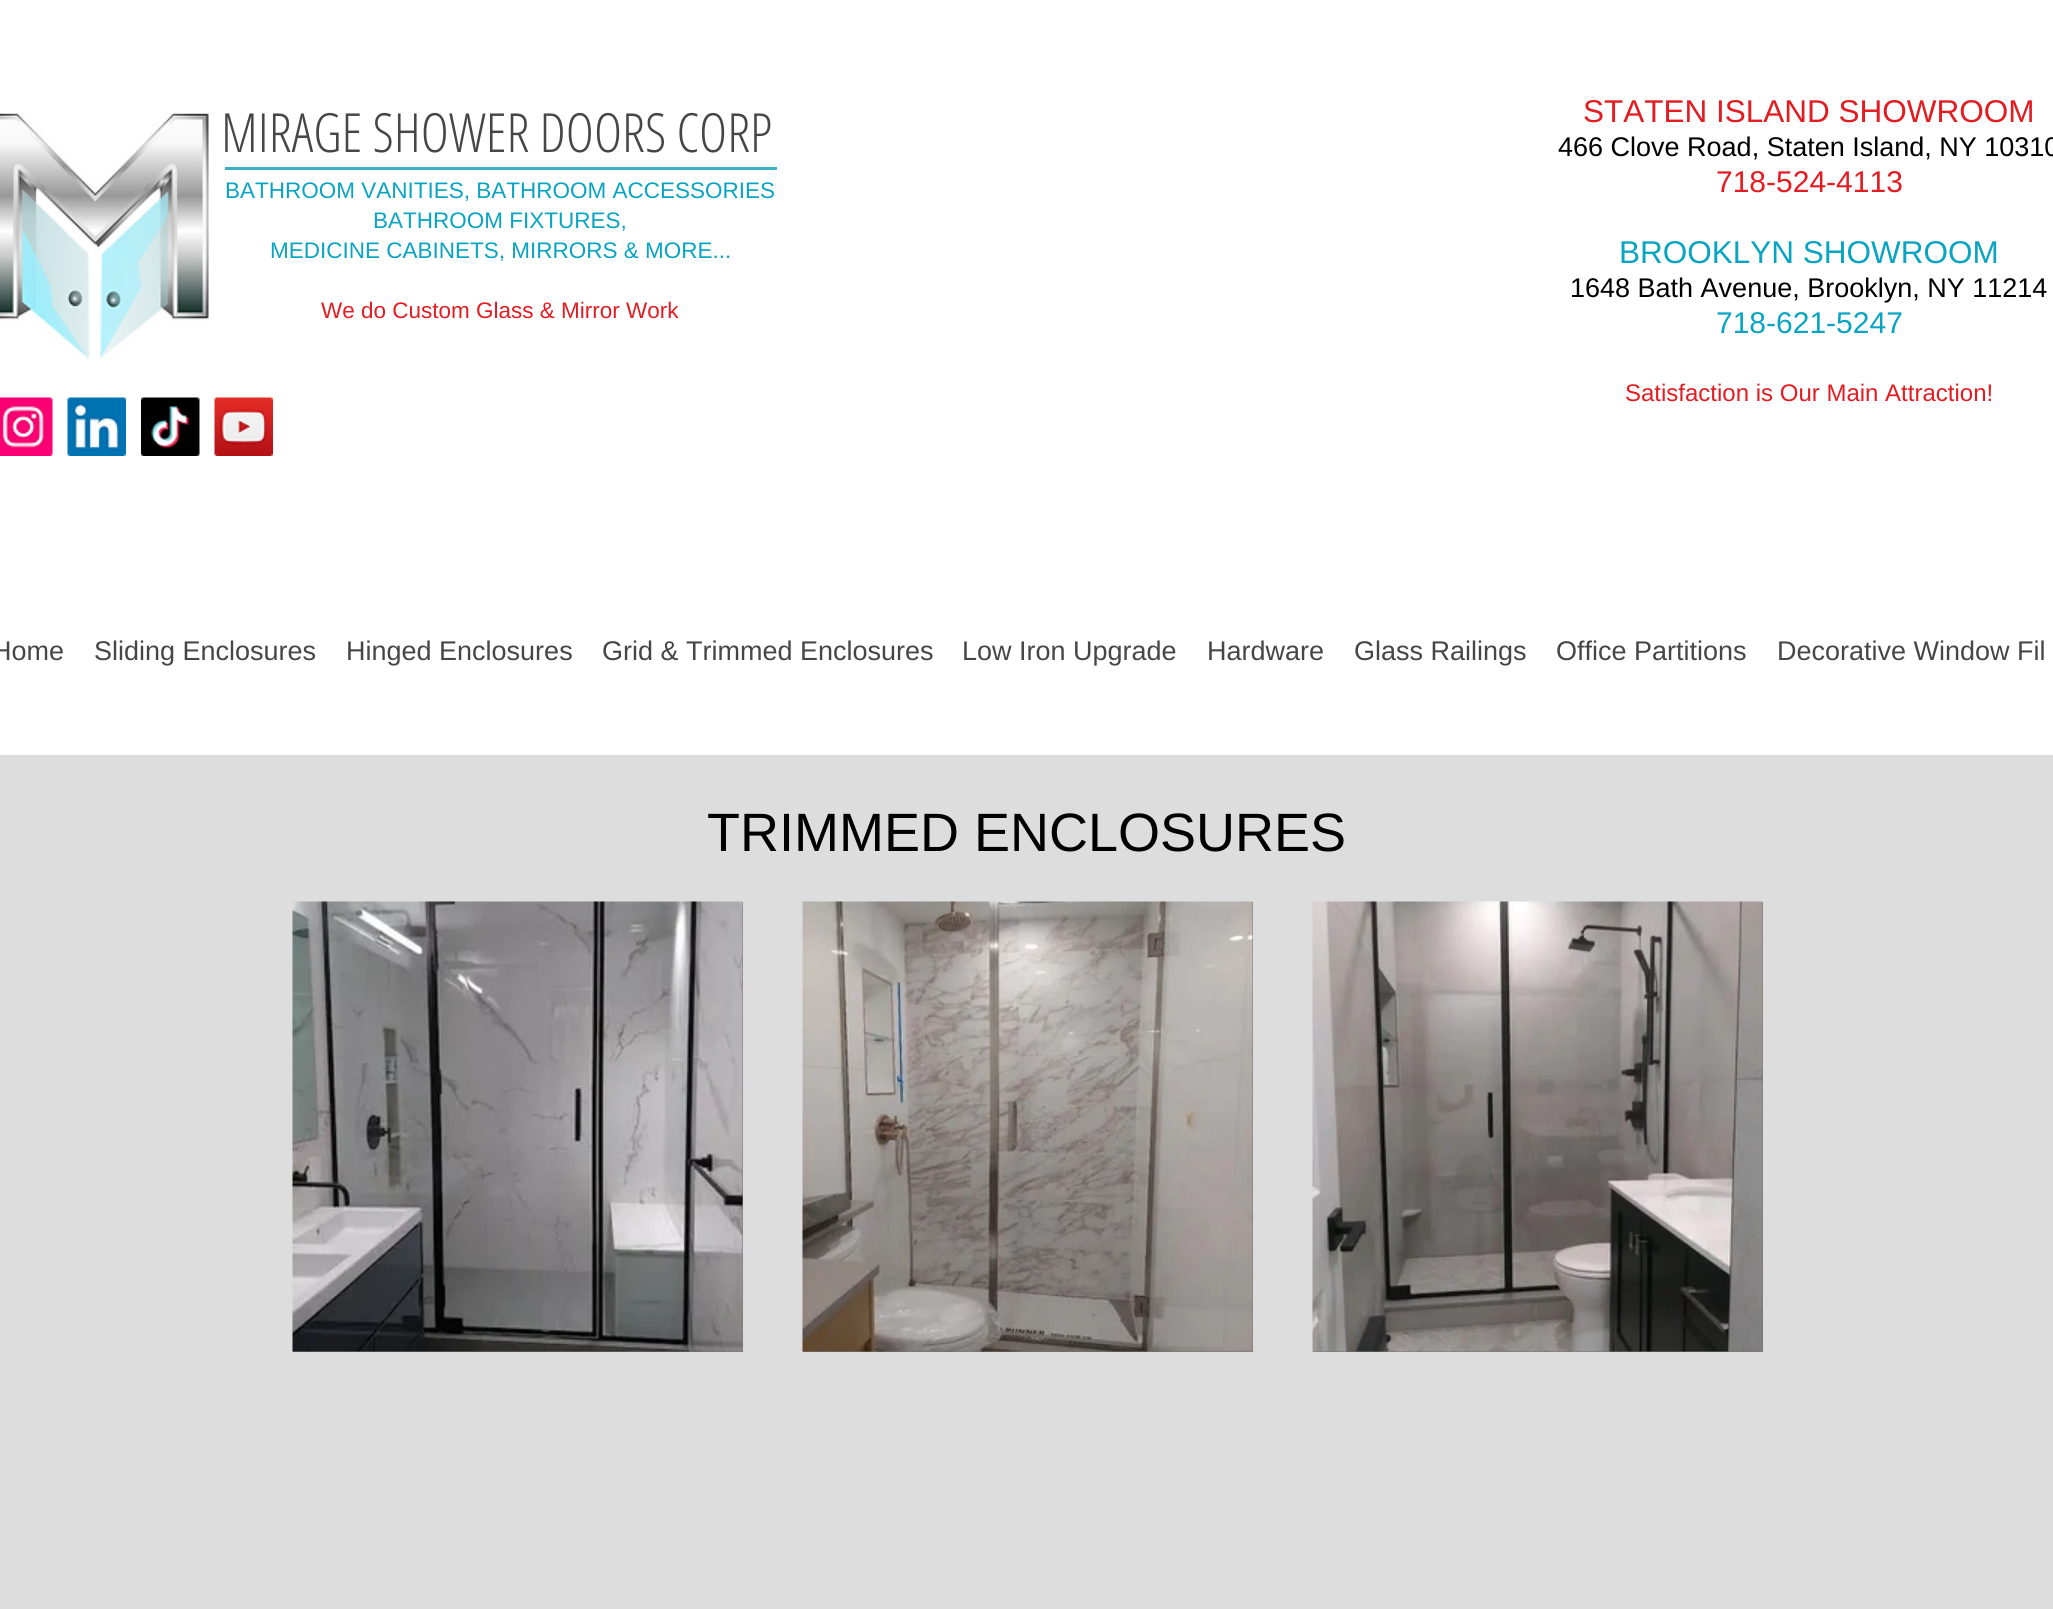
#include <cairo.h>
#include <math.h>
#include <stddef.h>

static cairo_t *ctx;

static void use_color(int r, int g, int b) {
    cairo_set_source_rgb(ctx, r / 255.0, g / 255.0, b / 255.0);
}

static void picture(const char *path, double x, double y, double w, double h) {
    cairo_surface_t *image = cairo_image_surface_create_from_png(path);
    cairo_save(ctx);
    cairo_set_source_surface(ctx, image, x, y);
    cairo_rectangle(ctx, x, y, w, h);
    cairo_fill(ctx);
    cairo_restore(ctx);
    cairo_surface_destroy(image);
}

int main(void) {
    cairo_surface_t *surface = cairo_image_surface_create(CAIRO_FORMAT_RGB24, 2053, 1609);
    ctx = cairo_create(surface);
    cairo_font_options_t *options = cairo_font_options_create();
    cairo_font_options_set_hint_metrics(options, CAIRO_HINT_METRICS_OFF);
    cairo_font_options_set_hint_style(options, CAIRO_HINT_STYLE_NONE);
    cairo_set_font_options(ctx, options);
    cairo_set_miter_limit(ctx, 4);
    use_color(255, 255, 255);
    cairo_paint(ctx);
    picture("img1.png", 0, 112, 209, 247);
    cairo_select_font_face(ctx, "Open Sans Condensed Light", CAIRO_FONT_SLANT_NORMAL, CAIRO_FONT_WEIGHT_NORMAL);
    cairo_set_font_size(ctx, 54);
    use_color(71, 70, 70);
    cairo_move_to(ctx, 221, 152);
    cairo_show_text(ctx, "MIRAGE SHOWER DOORS CORP");
    cairo_select_font_face(ctx, "Liberation Sans", CAIRO_FONT_SLANT_NORMAL, CAIRO_FONT_WEIGHT_NORMAL);
    cairo_set_font_size(ctx, 31.5);
    use_color(226, 28, 33);
    cairo_move_to(ctx, 1583, 122);
    cairo_show_text(ctx, "STATEN ISLAND SHOWROOM");
    cairo_set_font_size(ctx, 27);
    use_color(0, 0, 0);
    cairo_move_to(ctx, 1558, 156);
    cairo_show_text(ctx, "466 Clove Road, Staten Island, NY 10310");
    cairo_set_font_size(ctx, 30);
    use_color(226, 28, 33);
    cairo_move_to(ctx, 1716, 192);
    cairo_show_text(ctx, "718-524-4113");
    cairo_set_font_size(ctx, 31.5);
    use_color(9, 164, 194);
    cairo_move_to(ctx, 1619, 263);
    cairo_show_text(ctx, "BROOKLYN SHOWROOM");
    cairo_set_font_size(ctx, 27);
    use_color(0, 0, 0);
    cairo_move_to(ctx, 1570, 297);
    cairo_show_text(ctx, "1648 Bath Avenue, Brooklyn, NY 11214");
    cairo_set_font_size(ctx, 30);
    use_color(9, 164, 194);
    cairo_move_to(ctx, 1716, 333);
    cairo_show_text(ctx, "718-621-5247");
    cairo_set_font_size(ctx, 24);
    use_color(226, 28, 33);
    cairo_move_to(ctx, 1625, 401);
    cairo_show_text(ctx, "Satisfaction is Our Main Attraction!");
    use_color(58, 176, 199);
    cairo_rectangle(ctx, 225, 167, 552, 3);
    cairo_fill(ctx);
    cairo_set_font_size(ctx, 22.5);
    use_color(9, 164, 194);
    cairo_move_to(ctx, 225, 198);
    cairo_show_text(ctx, "BATHROOM VANITIES, BATHROOM ACCESSORIES");
    cairo_move_to(ctx, 373, 228);
    cairo_show_text(ctx, "BATHROOM FIXTURES,");
    cairo_move_to(ctx, 270, 258);
    cairo_show_text(ctx, "MEDICINE CABINETS, MIRRORS & MORE...");
    use_color(226, 28, 33);
    cairo_move_to(ctx, 321, 318);
    cairo_show_text(ctx, "We do Custom Glass & Mirror Work");
    picture("img2.png", 0, 397, 53, 59);
    picture("img3.png", 67, 397, 59, 59);
    picture("img4.png", 141, 397, 59, 59);
    picture("img5.png", 214, 397, 59, 59);
    cairo_set_font_size(ctx, 27);
    use_color(71, 70, 70);
    cairo_move_to(ctx, -8, 660);
    cairo_show_text(ctx, "Home");
    cairo_move_to(ctx, 94, 660);
    cairo_show_text(ctx, "Sliding Enclosures");
    cairo_move_to(ctx, 346, 660);
    cairo_show_text(ctx, "Hinged Enclosures");
    cairo_move_to(ctx, 602, 660);
    cairo_show_text(ctx, "Grid & Trimmed Enclosures");
    cairo_move_to(ctx, 962, 660);
    cairo_show_text(ctx, "Low Iron Upgrade");
    cairo_move_to(ctx, 1207, 660);
    cairo_show_text(ctx, "Hardware");
    cairo_move_to(ctx, 1354, 660);
    cairo_show_text(ctx, "Glass Railings");
    cairo_move_to(ctx, 1556, 660);
    cairo_show_text(ctx, "Office Partitions");
    cairo_move_to(ctx, 1777, 660);
    cairo_show_text(ctx, "Decorative Window Fil");
    use_color(222, 221, 221);
    cairo_rectangle(ctx, 0, 755, 2053, 854);
    cairo_fill(ctx);
    cairo_set_font_size(ctx, 54);
    use_color(0, 0, 0);
    cairo_move_to(ctx, 707, 851);
    cairo_show_text(ctx, "TRIMMED ENCLOSURES");
    use_color(118, 118, 118);
    cairo_rectangle(ctx, 293, 902, 450, 450);
    cairo_fill(ctx);
    picture("img6.png", 292, 901, 451, 451);
    cairo_rectangle(ctx, 803, 902, 450, 450);
    cairo_fill(ctx);
    picture("img7.png", 802, 901, 451, 451);
    cairo_rectangle(ctx, 1313, 902, 450, 450);
    cairo_fill(ctx);
    picture("img8.png", 1312, 901, 451, 451);
    cairo_surface_write_to_png(surface, "result.png");
    cairo_font_options_destroy(options);
    cairo_destroy(ctx);
    cairo_surface_destroy(surface);
    return 0;
}
